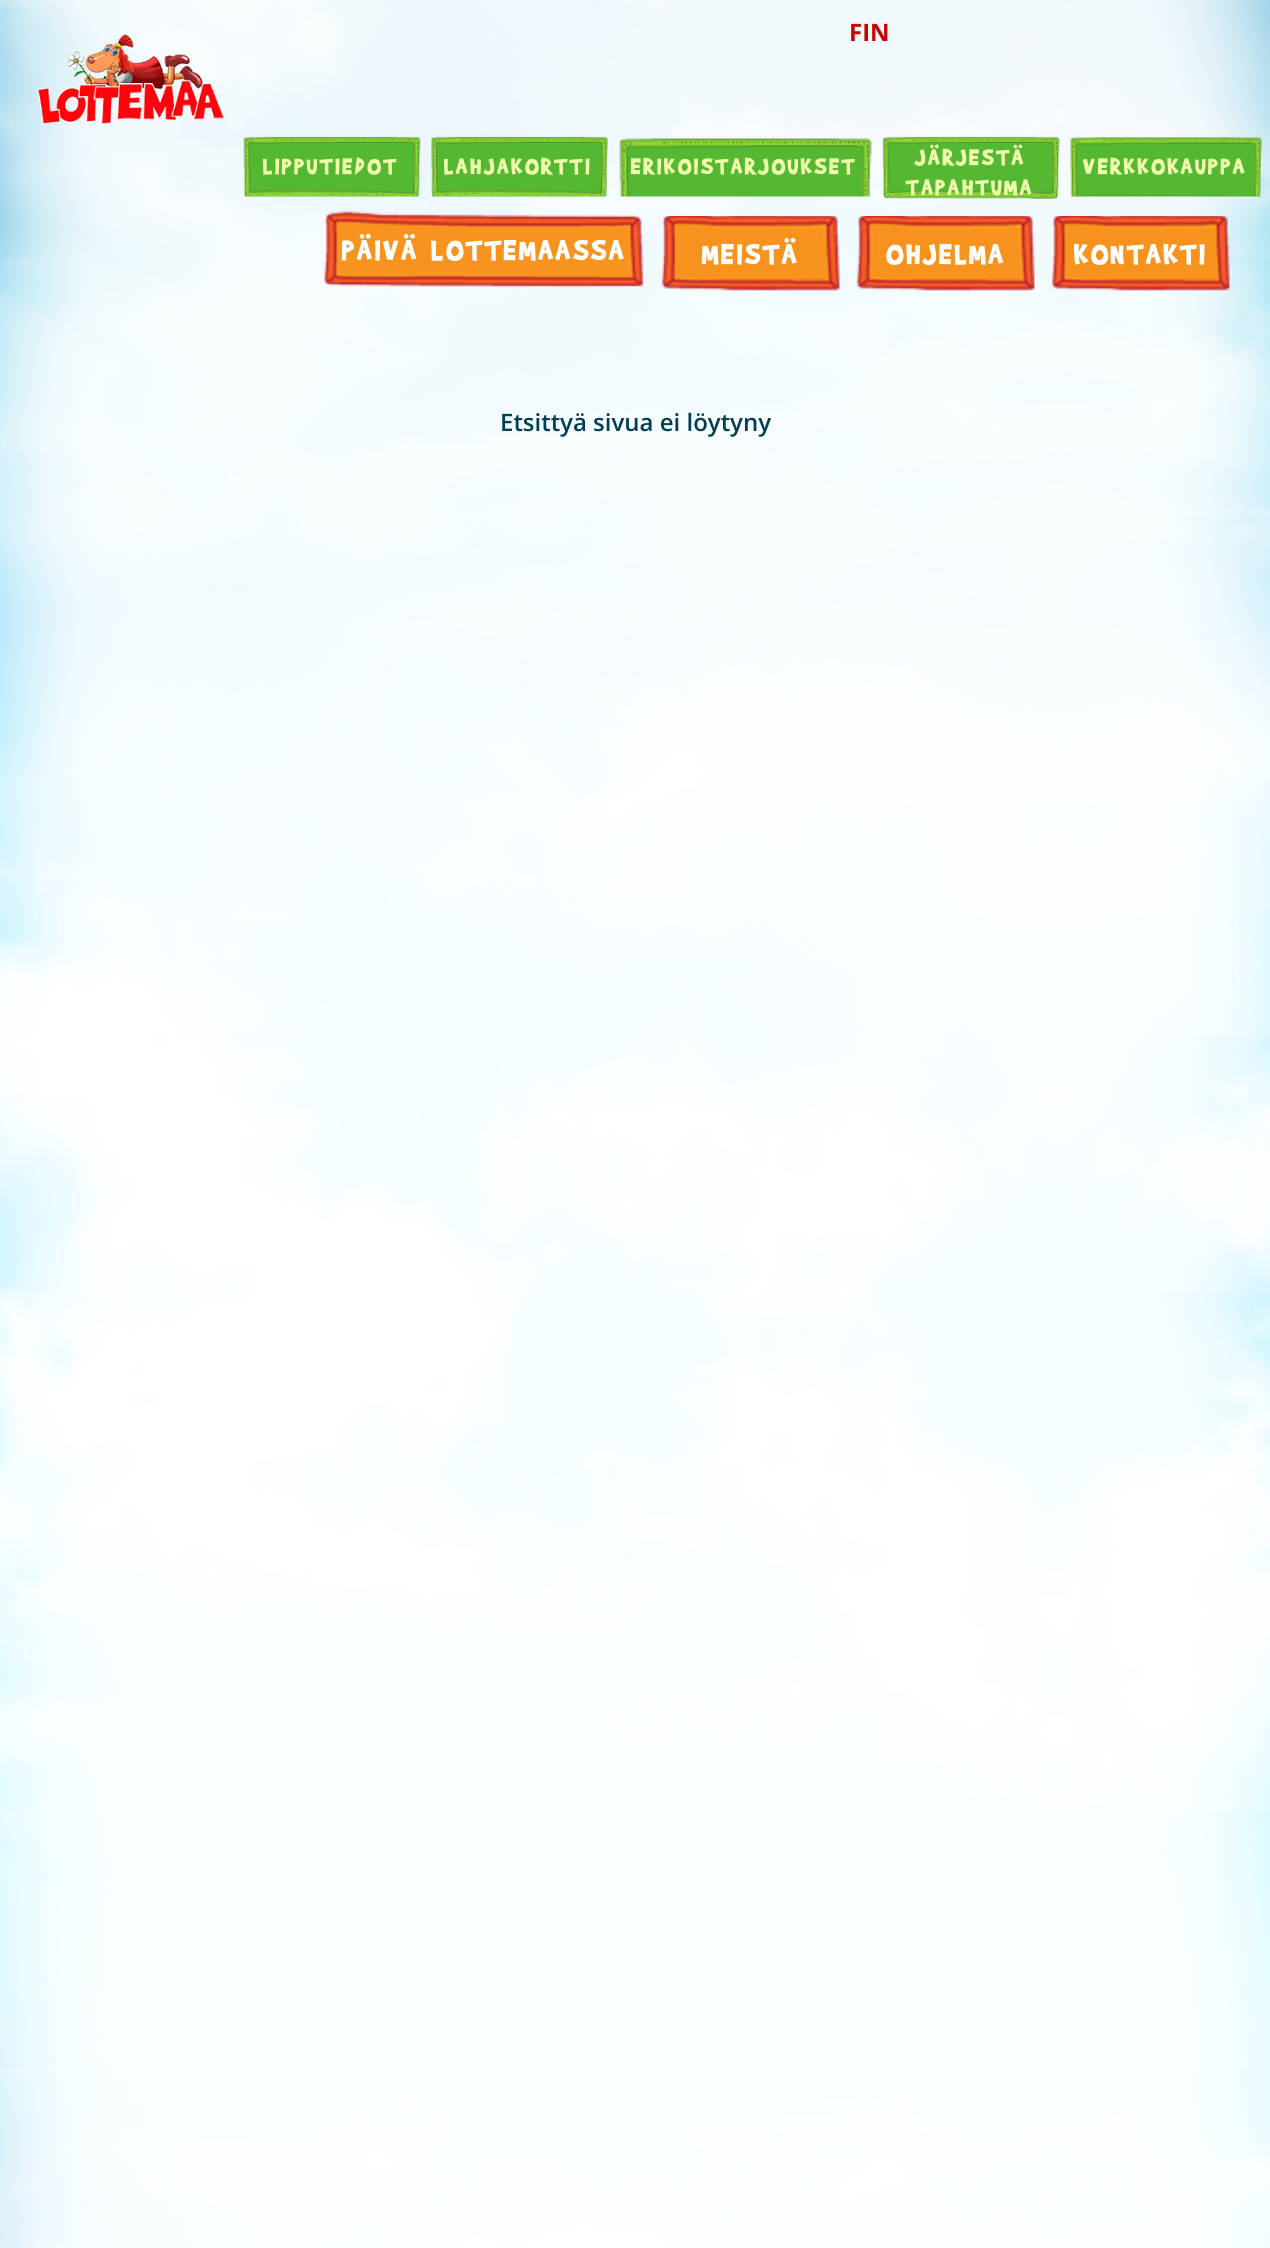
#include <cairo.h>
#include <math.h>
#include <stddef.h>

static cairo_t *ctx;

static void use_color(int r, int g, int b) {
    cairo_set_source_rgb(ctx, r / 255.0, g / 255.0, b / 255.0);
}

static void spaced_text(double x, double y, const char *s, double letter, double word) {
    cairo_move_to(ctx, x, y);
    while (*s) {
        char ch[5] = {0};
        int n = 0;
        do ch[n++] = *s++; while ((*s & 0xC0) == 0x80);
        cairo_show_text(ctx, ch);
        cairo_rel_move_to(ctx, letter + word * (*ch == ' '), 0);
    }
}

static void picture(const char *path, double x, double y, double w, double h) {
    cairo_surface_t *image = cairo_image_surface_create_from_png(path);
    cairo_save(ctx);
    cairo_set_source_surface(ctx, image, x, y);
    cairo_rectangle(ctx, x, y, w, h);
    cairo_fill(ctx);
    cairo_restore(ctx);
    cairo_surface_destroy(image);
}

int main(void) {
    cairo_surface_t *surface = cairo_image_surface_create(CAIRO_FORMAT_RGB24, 1270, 2248);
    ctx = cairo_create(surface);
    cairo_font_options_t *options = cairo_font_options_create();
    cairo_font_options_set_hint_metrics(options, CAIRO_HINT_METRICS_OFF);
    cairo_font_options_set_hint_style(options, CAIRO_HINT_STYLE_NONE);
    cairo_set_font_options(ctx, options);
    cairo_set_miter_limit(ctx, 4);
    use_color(255, 255, 255);
    cairo_paint(ctx);
    picture("img1.png", 0, 0, 1270, 2248);
    picture("img2.png", 0, 0, 1270, 2248);
    cairo_select_font_face(ctx, "Open Sans", CAIRO_FONT_SLANT_NORMAL, CAIRO_FONT_WEIGHT_BOLD);
    cairo_set_font_size(ctx, 24);
    use_color(198, 3, 0);
    cairo_move_to(ctx, 849, 41);
    cairo_show_text(ctx, "FIN");
    picture("img3.png", 37, 34, 188, 91);
    picture("img4.png", 243, 136, 178, 61);
    cairo_select_font_face(ctx, "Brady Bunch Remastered", CAIRO_FONT_SLANT_NORMAL, CAIRO_FONT_WEIGHT_NORMAL);
    cairo_set_font_size(ctx, 27);
    use_color(239, 255, 171);
    spaced_text(263, 174, "LIPPUTIEDOT", 2.5, 0);
    picture("img5.png", 431, 136, 177, 61);
    spaced_text(444, 174, "LAHJAKORTTI", 2.5, 0);
    picture("img6.png", 619, 138, 253, 59);
    spaced_text(631, 174, "ERIKOISTARJOUKSET", 2.5, 0);
    picture("img7.png", 882, 136, 178, 63);
    spaced_text(915, 165, "JÄRJESTÄ", 2.5, 0);
    spaced_text(906, 195, "TAPAHTUMA", 2.5, 0);
    picture("img8.png", 1070, 137, 192, 60);
    spaced_text(1083, 174, "VERKKOKAUPPA", 2.5, 0);
    picture("img9.png", 324, 211, 320, 76);
    cairo_set_font_size(ctx, 34.5);
    use_color(255, 255, 255);
    spaced_text(342, 260, "PÄIVÄ LOTTEMAASSA", 2.5, 0);
    picture("img10.png", 661, 216, 179, 75);
    spaced_text(702, 264, "MEISTÄ", 2.5, 0);
    picture("img11.png", 856, 216, 179, 75);
    spaced_text(886, 264, "OHJELMA", 2.5, 0);
    picture("img12.png", 1051, 216, 179, 75);
    spaced_text(1074, 264, "KONTAKTI", 2.5, 0);
    cairo_select_font_face(ctx, "Open Sans SemiBold", CAIRO_FONT_SLANT_NORMAL, CAIRO_FONT_WEIGHT_NORMAL);
    cairo_set_font_size(ctx, 24);
    use_color(0, 62, 83);
    cairo_move_to(ctx, 500, 431);
    cairo_show_text(ctx, "Etsittyä sivua ei löytyny");
    cairo_surface_write_to_png(surface, "result.png");
    cairo_font_options_destroy(options);
    cairo_destroy(ctx);
    cairo_surface_destroy(surface);
    return 0;
}
